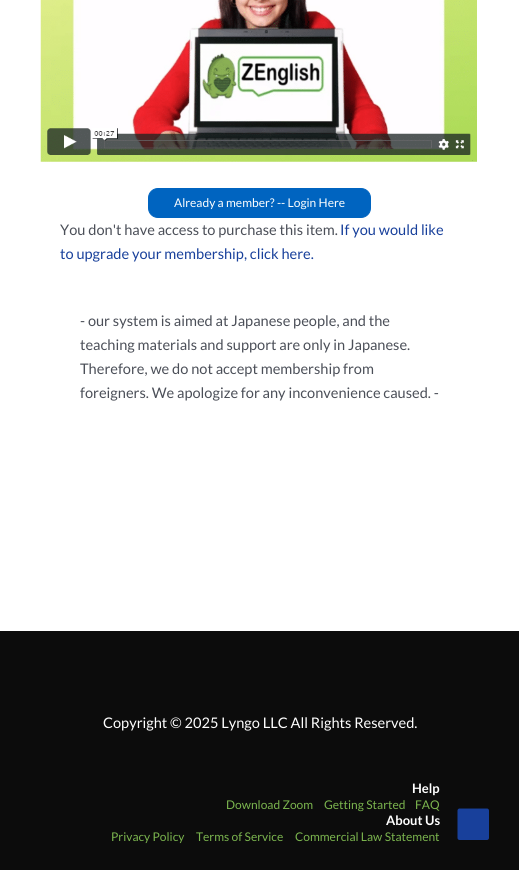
#include <cairo.h>
#include <math.h>
#include <stddef.h>

static cairo_t *ctx;

static void use_color(int r, int g, int b) {
    cairo_set_source_rgb(ctx, r / 255.0, g / 255.0, b / 255.0);
}

static void round_rect(double x, double y, double w, double h, double r) {
    cairo_new_sub_path(ctx);
    cairo_arc(ctx, x + w - r, y + h - r, r, 0, M_PI / 2);
    cairo_arc(ctx, x + r, y + h - r, r, M_PI / 2, M_PI);
    cairo_arc(ctx, x + r, y + r, r, M_PI, 1.5 * M_PI);
    cairo_arc(ctx, x + w - r, y + r, r, 1.5 * M_PI, 2 * M_PI);
    cairo_close_path(ctx);
}

static void picture(const char *path, double x, double y, double w, double h) {
    cairo_surface_t *image = cairo_image_surface_create_from_png(path);
    cairo_save(ctx);
    cairo_set_source_surface(ctx, image, x, y);
    cairo_rectangle(ctx, x, y, w, h);
    cairo_fill(ctx);
    cairo_restore(ctx);
    cairo_surface_destroy(image);
}

int main(void) {
    cairo_surface_t *surface = cairo_image_surface_create(CAIRO_FORMAT_RGB24, 519, 870);
    ctx = cairo_create(surface);
    cairo_font_options_t *options = cairo_font_options_create();
    cairo_font_options_set_hint_metrics(options, CAIRO_HINT_METRICS_OFF);
    cairo_font_options_set_hint_style(options, CAIRO_HINT_STYLE_NONE);
    cairo_set_font_options(ctx, options);
    cairo_set_miter_limit(ctx, 4);
    use_color(255, 255, 255);
    cairo_paint(ctx);
    picture("img1.png", 40, 0, 437, 162);
    use_color(0, 100, 192);
    round_rect(148.5, 188.5, 222, 29, 9.5);
    cairo_fill_preserve(ctx);
    cairo_set_line_width(ctx, 1);
    cairo_stroke(ctx);
    cairo_select_font_face(ctx, "Lato", CAIRO_FONT_SLANT_NORMAL, CAIRO_FONT_WEIGHT_NORMAL);
    cairo_set_font_size(ctx, 12);
    use_color(255, 255, 255);
    cairo_move_to(ctx, 174, 207);
    cairo_show_text(ctx, "Already a member? -- Login Here");
    cairo_set_font_size(ctx, 14.6);
    use_color(75, 79, 88);
    cairo_move_to(ctx, 60, 235);
    cairo_show_text(ctx, "You don't have access to purchase this item.");
    use_color(24, 64, 155);
    cairo_move_to(ctx, 340, 235);
    cairo_show_text(ctx, "If you would like");
    cairo_move_to(ctx, 60, 259);
    cairo_show_text(ctx, "to upgrade your membership, click here.");
    use_color(75, 79, 88);
    cairo_move_to(ctx, 80, 326);
    cairo_show_text(ctx, "- our system is aimed at Japanese people, and the");
    cairo_move_to(ctx, 80, 350);
    cairo_show_text(ctx, "teaching materials and support are only in Japanese.");
    cairo_move_to(ctx, 80, 374);
    cairo_show_text(ctx, "Therefore, we do not accept membership from");
    cairo_move_to(ctx, 80, 398);
    cairo_show_text(ctx, "foreigners. We apologize for any inconvenience caused. -");
    use_color(12, 12, 12);
    cairo_rectangle(ctx, 0, 631, 519, 239);
    cairo_fill(ctx);
    use_color(255, 255, 255);
    cairo_move_to(ctx, 103, 728);
    cairo_show_text(ctx, "Copyright © 2025 Lyngo LLC All Rights Reserved.");
    cairo_select_font_face(ctx, "Lato", CAIRO_FONT_SLANT_NORMAL, CAIRO_FONT_WEIGHT_BOLD);
    cairo_set_font_size(ctx, 13);
    cairo_move_to(ctx, 412, 793);
    cairo_show_text(ctx, "Help");
    cairo_select_font_face(ctx, "Lato", CAIRO_FONT_SLANT_NORMAL, CAIRO_FONT_WEIGHT_NORMAL);
    cairo_set_font_size(ctx, 12);
    use_color(123, 181, 78);
    cairo_move_to(ctx, 226, 809);
    cairo_show_text(ctx, "Download Zoom");
    cairo_move_to(ctx, 324, 809);
    cairo_show_text(ctx, "Getting Started");
    cairo_move_to(ctx, 415, 809);
    cairo_show_text(ctx, "FAQ");
    cairo_select_font_face(ctx, "Lato", CAIRO_FONT_SLANT_NORMAL, CAIRO_FONT_WEIGHT_BOLD);
    cairo_set_font_size(ctx, 13);
    use_color(255, 255, 255);
    cairo_move_to(ctx, 386, 825);
    cairo_show_text(ctx, "About Us");
    cairo_select_font_face(ctx, "Lato", CAIRO_FONT_SLANT_NORMAL, CAIRO_FONT_WEIGHT_NORMAL);
    cairo_set_font_size(ctx, 12);
    use_color(123, 181, 78);
    cairo_move_to(ctx, 111, 841);
    cairo_show_text(ctx, "Privacy Policy");
    cairo_move_to(ctx, 196, 841);
    cairo_show_text(ctx, "Terms of Service");
    cairo_move_to(ctx, 295, 841);
    cairo_show_text(ctx, "Commercial Law Statement");
    use_color(24, 64, 155);
    cairo_new_path(ctx);
    cairo_move_to(ctx, 487, 840);
    cairo_line_to(ctx, 459.5, 840);
    cairo_curve_to(ctx, 458.5, 840, 457.5, 839, 457.5, 838);
    cairo_line_to(ctx, 457.5, 810.5);
    cairo_curve_to(ctx, 457.5, 809.5, 458.5, 808.5, 459.5, 808.5);
    cairo_line_to(ctx, 487, 808.5);
    cairo_curve_to(ctx, 488, 808.5, 489, 809.5, 489, 810.5);
    cairo_line_to(ctx, 489, 838);
    cairo_curve_to(ctx, 489, 839, 488, 840, 487, 840);
    cairo_close_path(ctx);
    cairo_fill(ctx);
    cairo_surface_write_to_png(surface, "result.png");
    cairo_font_options_destroy(options);
    cairo_destroy(ctx);
    cairo_surface_destroy(surface);
    return 0;
}
